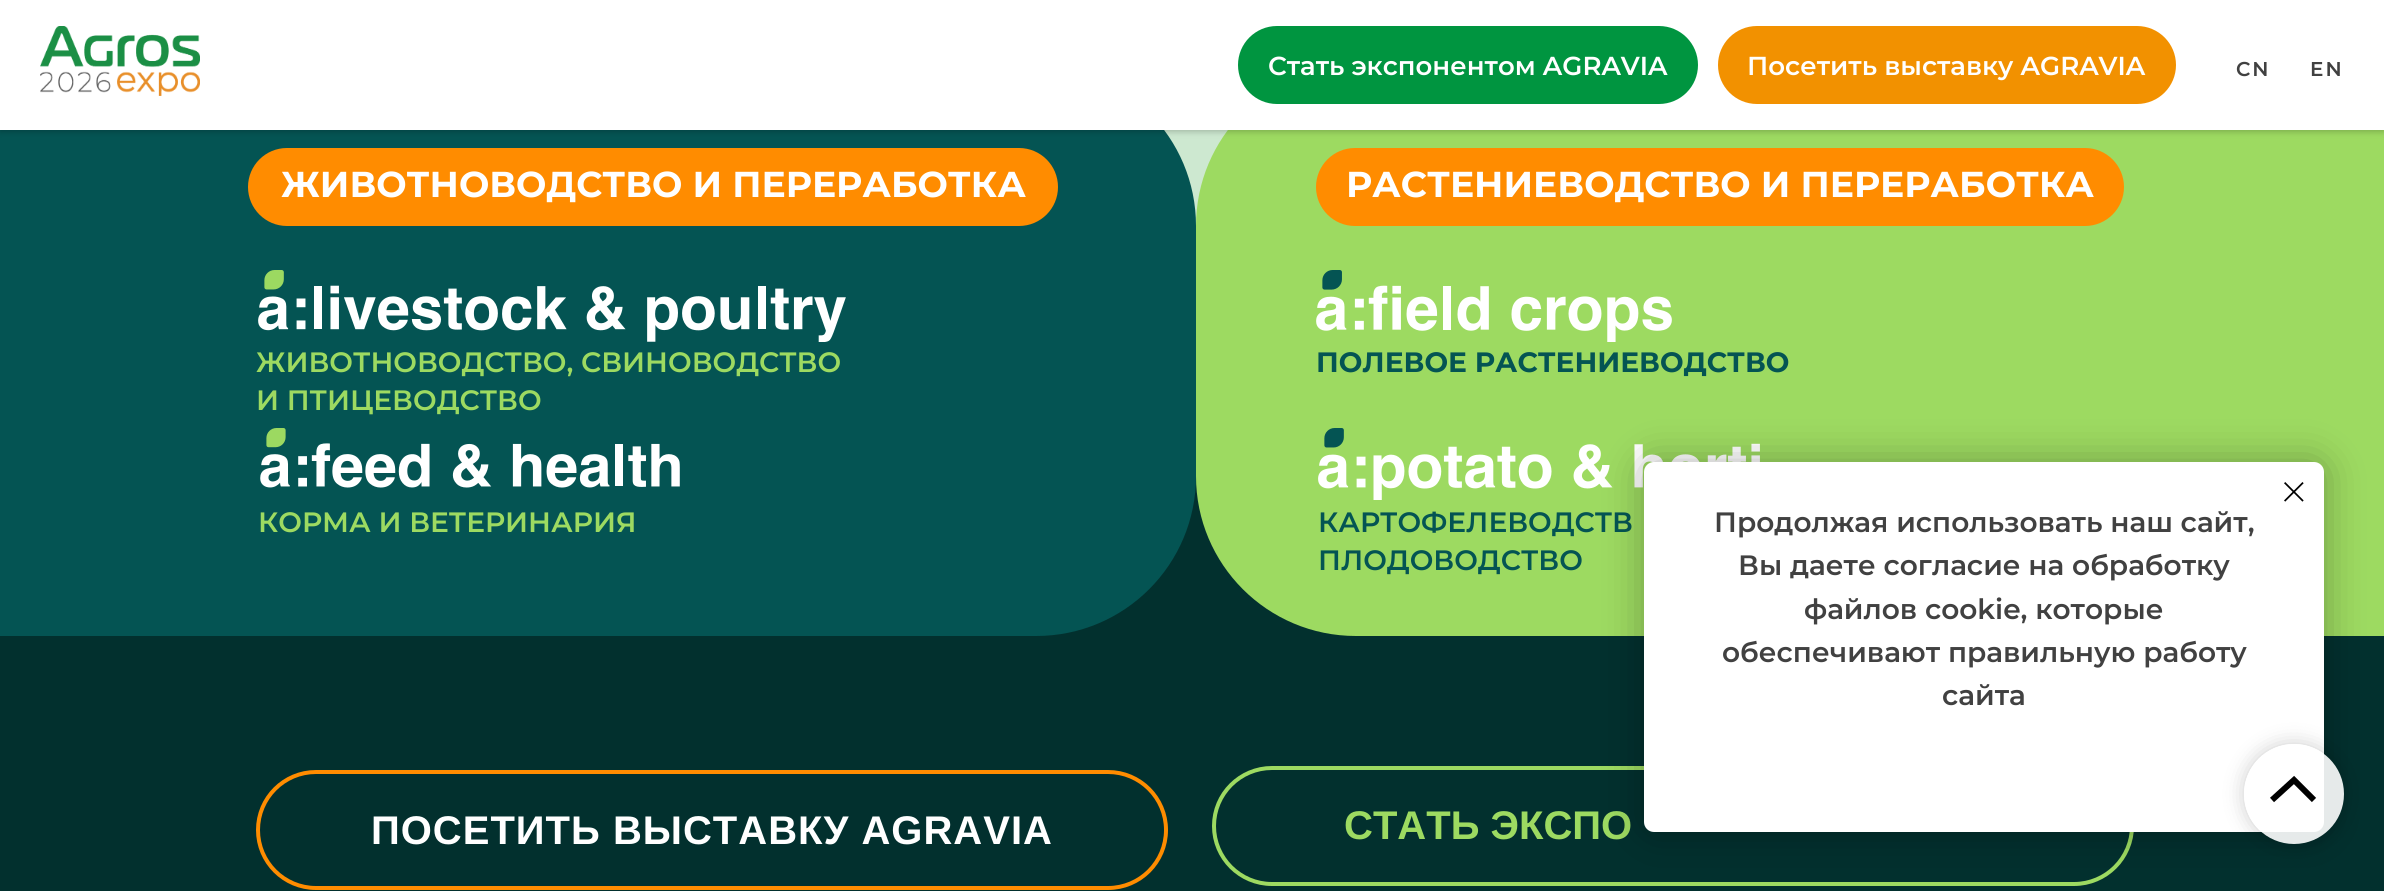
#include <cairo.h>
#include <math.h>
#include <stddef.h>

static cairo_t *ctx;

static void use_color(int r, int g, int b) {
    cairo_set_source_rgb(ctx, r / 255.0, g / 255.0, b / 255.0);
}

static void spaced_text(double x, double y, const char *s, double letter, double word) {
    cairo_move_to(ctx, x, y);
    while (*s) {
        char ch[5] = {0};
        int n = 0;
        do ch[n++] = *s++; while ((*s & 0xC0) == 0x80);
        cairo_show_text(ctx, ch);
        cairo_rel_move_to(ctx, letter + word * (*ch == ' '), 0);
    }
}

static void round_rect(double x, double y, double w, double h, double r) {
    cairo_new_sub_path(ctx);
    cairo_arc(ctx, x + w - r, y + h - r, r, 0, M_PI / 2);
    cairo_arc(ctx, x + r, y + h - r, r, M_PI / 2, M_PI);
    cairo_arc(ctx, x + r, y + r, r, M_PI, 1.5 * M_PI);
    cairo_arc(ctx, x + w - r, y + r, r, 1.5 * M_PI, 2 * M_PI);
    cairo_close_path(ctx);
}

static void shadow(double x, double y, double w, double h, double r, double blur, double alpha) {
    cairo_push_group_with_content(ctx, CAIRO_CONTENT_ALPHA);
    cairo_set_operator(ctx, CAIRO_OPERATOR_SOURCE);
    for (int i = 15; i >= -15 && fmin(w, h) + blur * i / 3 > 0; i -= 2) {
        double e = blur * i / 6;
        cairo_set_source_rgba(ctx, 0, 0, 0, alpha * erfc((i - 1) / 8.5) / 2);
        round_rect(x - e, y - e, w + 2 * e, h + 2 * e, fmax(0, fmin(r + e + blur * .6, fmin(w, h) / 2 + e)));
        cairo_fill(ctx);
    }
    cairo_pattern_t *soft = cairo_pop_group(ctx);
    cairo_mask(ctx, soft);
    cairo_pattern_destroy(soft);
}

static void picture(const char *path, double x, double y, double w, double h) {
    cairo_surface_t *image = cairo_image_surface_create_from_png(path);
    cairo_save(ctx);
    cairo_set_source_surface(ctx, image, x, y);
    cairo_rectangle(ctx, x, y, w, h);
    cairo_fill(ctx);
    cairo_restore(ctx);
    cairo_surface_destroy(image);
}

int main(void) {
    cairo_surface_t *surface = cairo_image_surface_create(CAIRO_FORMAT_RGB24, 2384, 891);
    ctx = cairo_create(surface);
    cairo_font_options_t *options = cairo_font_options_create();
    cairo_font_options_set_hint_metrics(options, CAIRO_HINT_METRICS_OFF);
    cairo_font_options_set_hint_style(options, CAIRO_HINT_STYLE_NONE);
    cairo_set_font_options(ctx, options);
    cairo_set_miter_limit(ctx, 4);
    use_color(205, 232, 208);
    cairo_paint(ctx);
    use_color(2, 48, 46);
    cairo_rectangle(ctx, 0, 476, 2384, 415);
    cairo_fill(ctx);
    use_color(4, 84, 83);
    cairo_new_path(ctx);
    cairo_move_to(ctx, 0, 66);
    cairo_line_to(ctx, 1036, 66);
    cairo_curve_to(ctx, 1124.5, 66, 1196, 137.5, 1196, 226);
    cairo_line_to(ctx, 1196, 476);
    cairo_curve_to(ctx, 1196, 564.5, 1124.5, 636, 1036, 636);
    cairo_line_to(ctx, 0, 636);
    cairo_close_path(ctx);
    cairo_fill(ctx);
    use_color(157, 218, 97);
    cairo_new_path(ctx);
    cairo_move_to(ctx, 1356, 66);
    cairo_line_to(ctx, 2384, 66);
    cairo_line_to(ctx, 2384, 636);
    cairo_line_to(ctx, 1356, 636);
    cairo_curve_to(ctx, 1267.5, 636, 1196, 564.5, 1196, 476);
    cairo_line_to(ctx, 1196, 226);
    cairo_curve_to(ctx, 1196, 137.5, 1267.5, 66, 1356, 66);
    cairo_close_path(ctx);
    cairo_fill(ctx);
    use_color(0, 0, 0);
    shadow(0, 2, 2384, 130, 0, 3, 0.2);
    use_color(255, 255, 255);
    cairo_rectangle(ctx, 0, 0, 2384, 130);
    cairo_fill(ctx);
    picture("img1.png", 40, 26, 160, 70);
    use_color(0, 149, 64);
    round_rect(1238, 26, 460, 78, 39);
    cairo_fill(ctx);
    cairo_select_font_face(ctx, "Montserrat SemiBold", CAIRO_FONT_SLANT_NORMAL, CAIRO_FONT_WEIGHT_NORMAL);
    cairo_set_font_size(ctx, 26);
    use_color(255, 255, 255);
    cairo_move_to(ctx, 1268, 75);
    cairo_show_text(ctx, "Стать экспонентом AGRAVIA");
    use_color(242, 145, 0);
    round_rect(1718, 26, 458, 78, 39);
    cairo_fill(ctx);
    use_color(255, 255, 255);
    cairo_move_to(ctx, 1747, 75);
    cairo_show_text(ctx, "Посетить выставку AGRAVIA");
    cairo_set_font_size(ctx, 20);
    use_color(65, 65, 65);
    spaced_text(2236, 76, "CN", 2, 0);
    spaced_text(2310, 76, "EN", 2, 0);
    use_color(255, 140, 0);
    round_rect(248, 148, 810, 78, 39);
    cairo_fill(ctx);
    cairo_select_font_face(ctx, "Montserrat", CAIRO_FONT_SLANT_NORMAL, CAIRO_FONT_WEIGHT_BOLD);
    cairo_set_font_size(ctx, 36);
    use_color(255, 255, 255);
    cairo_move_to(ctx, 281, 197);
    cairo_show_text(ctx, "ЖИВОТНОВОДСТВО И ПЕРЕРАБОТКА");
    use_color(255, 140, 0);
    round_rect(1316, 148, 808, 78, 39);
    cairo_fill(ctx);
    use_color(255, 255, 255);
    cairo_move_to(ctx, 1346, 197);
    cairo_show_text(ctx, "РАСТЕНИЕВОДСТВО И ПЕРЕРАБОТКА");
    picture("img2.png", 258, 270, 588, 72);
    picture("img3.png", 1316, 270, 356, 72);
    cairo_select_font_face(ctx, "Montserrat SemiBold", CAIRO_FONT_SLANT_NORMAL, CAIRO_FONT_WEIGHT_NORMAL);
    cairo_set_font_size(ctx, 28);
    use_color(157, 218, 97);
    cairo_move_to(ctx, 256, 372);
    cairo_show_text(ctx, "ЖИВОТНОВОДСТВО, СВИНОВОДСТВО");
    cairo_move_to(ctx, 256, 410);
    cairo_show_text(ctx, "И ПТИЦЕВОДСТВО");
    cairo_select_font_face(ctx, "Montserrat", CAIRO_FONT_SLANT_NORMAL, CAIRO_FONT_WEIGHT_BOLD);
    use_color(4, 84, 83);
    cairo_move_to(ctx, 1316, 372);
    cairo_show_text(ctx, "ПОЛЕВОЕ РАСТЕНИЕВОДСТВО");
    picture("img4.png", 260, 428, 420, 60);
    picture("img5.png", 1318, 428, 442, 72);
    cairo_select_font_face(ctx, "Montserrat SemiBold", CAIRO_FONT_SLANT_NORMAL, CAIRO_FONT_WEIGHT_NORMAL);
    use_color(157, 218, 97);
    cairo_move_to(ctx, 258, 532);
    cairo_show_text(ctx, "КОРМА И ВЕТЕРИНАРИЯ");
    use_color(4, 84, 83);
    cairo_move_to(ctx, 1318, 532);
    cairo_show_text(ctx, "КАРТОФЕЛЕВОДСТВ");
    cairo_move_to(ctx, 1318, 570);
    cairo_show_text(ctx, "ПЛОДОВОДСТВО");
    round_rect(258, 772, 908, 116, 58);
    use_color(255, 140, 0);
    cairo_set_line_width(ctx, 4);
    cairo_stroke(ctx);
    cairo_select_font_face(ctx, "Liberation Sans", CAIRO_FONT_SLANT_NORMAL, CAIRO_FONT_WEIGHT_BOLD);
    cairo_set_font_size(ctx, 40);
    use_color(255, 255, 255);
    spaced_text(371, 844, "ПОСЕТИТЬ ВЫСТАВКУ AGRAVIA", 1, 0);
    round_rect(1214, 768, 918, 116, 58);
    use_color(157, 218, 97);
    cairo_stroke(ctx);
    cairo_move_to(ctx, 1344, 839);
    cairo_show_text(ctx, "СТАТЬ ЭКСПО");
    use_color(0, 0, 0);
    shadow(1644, 462, 680, 370, 10, 20, 0.3);
    use_color(255, 255, 255);
    round_rect(1644, 462, 680, 370, 10);
    cairo_fill(ctx);
    picture("img6.png", 2284, 482, 20, 20);
    cairo_select_font_face(ctx, "Montserrat SemiBold", CAIRO_FONT_SLANT_NORMAL, CAIRO_FONT_WEIGHT_NORMAL);
    cairo_set_font_size(ctx, 28);
    use_color(65, 65, 65);
    cairo_move_to(ctx, 1714, 532);
    cairo_show_text(ctx, "Продолжая использовать наш сайт,");
    cairo_move_to(ctx, 1738, 575);
    cairo_show_text(ctx, "Вы даете согласие на обработку");
    cairo_move_to(ctx, 1804, 619);
    cairo_show_text(ctx, "файлов cookie, которые");
    cairo_move_to(ctx, 1722, 662);
    cairo_show_text(ctx, "обеспечивают правильную работу");
    cairo_move_to(ctx, 1942, 705);
    cairo_show_text(ctx, "сайта");
    cairo_save(ctx);
    cairo_set_fill_rule(ctx, CAIRO_FILL_RULE_EVEN_ODD);
    cairo_new_path(ctx);
    cairo_move_to(ctx, 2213, 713);
    cairo_line_to(ctx, 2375, 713);
    cairo_line_to(ctx, 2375, 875);
    cairo_line_to(ctx, 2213, 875);
    cairo_close_path(ctx);
    cairo_move_to(ctx, 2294, 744);
    cairo_curve_to(ctx, 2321.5, 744, 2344, 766.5, 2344, 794);
    cairo_curve_to(ctx, 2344, 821.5, 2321.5, 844, 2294, 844);
    cairo_curve_to(ctx, 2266.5, 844, 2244, 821.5, 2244, 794);
    cairo_curve_to(ctx, 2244, 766.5, 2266.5, 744, 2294, 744);
    cairo_close_path(ctx);
    cairo_clip(ctx);
    use_color(0, 0, 0);
    shadow(2244, 744, 100, 100, 50, 10, 0.2);
    cairo_restore(ctx);
    cairo_set_source_rgba(ctx, 1, 1, 1, 0.9);
    cairo_arc(ctx, 2294, 794, 50, 0, 2 * M_PI);
    cairo_fill(ctx);
    cairo_new_path(ctx);
    cairo_move_to(ctx, 2272, 800);
    cairo_line_to(ctx, 2294, 780);
    cairo_line_to(ctx, 2314, 800);
    use_color(0, 0, 0);
    cairo_set_line_width(ctx, 6);
    cairo_stroke(ctx);
    cairo_surface_write_to_png(surface, "result.png");
    cairo_font_options_destroy(options);
    cairo_destroy(ctx);
    cairo_surface_destroy(surface);
    return 0;
}
